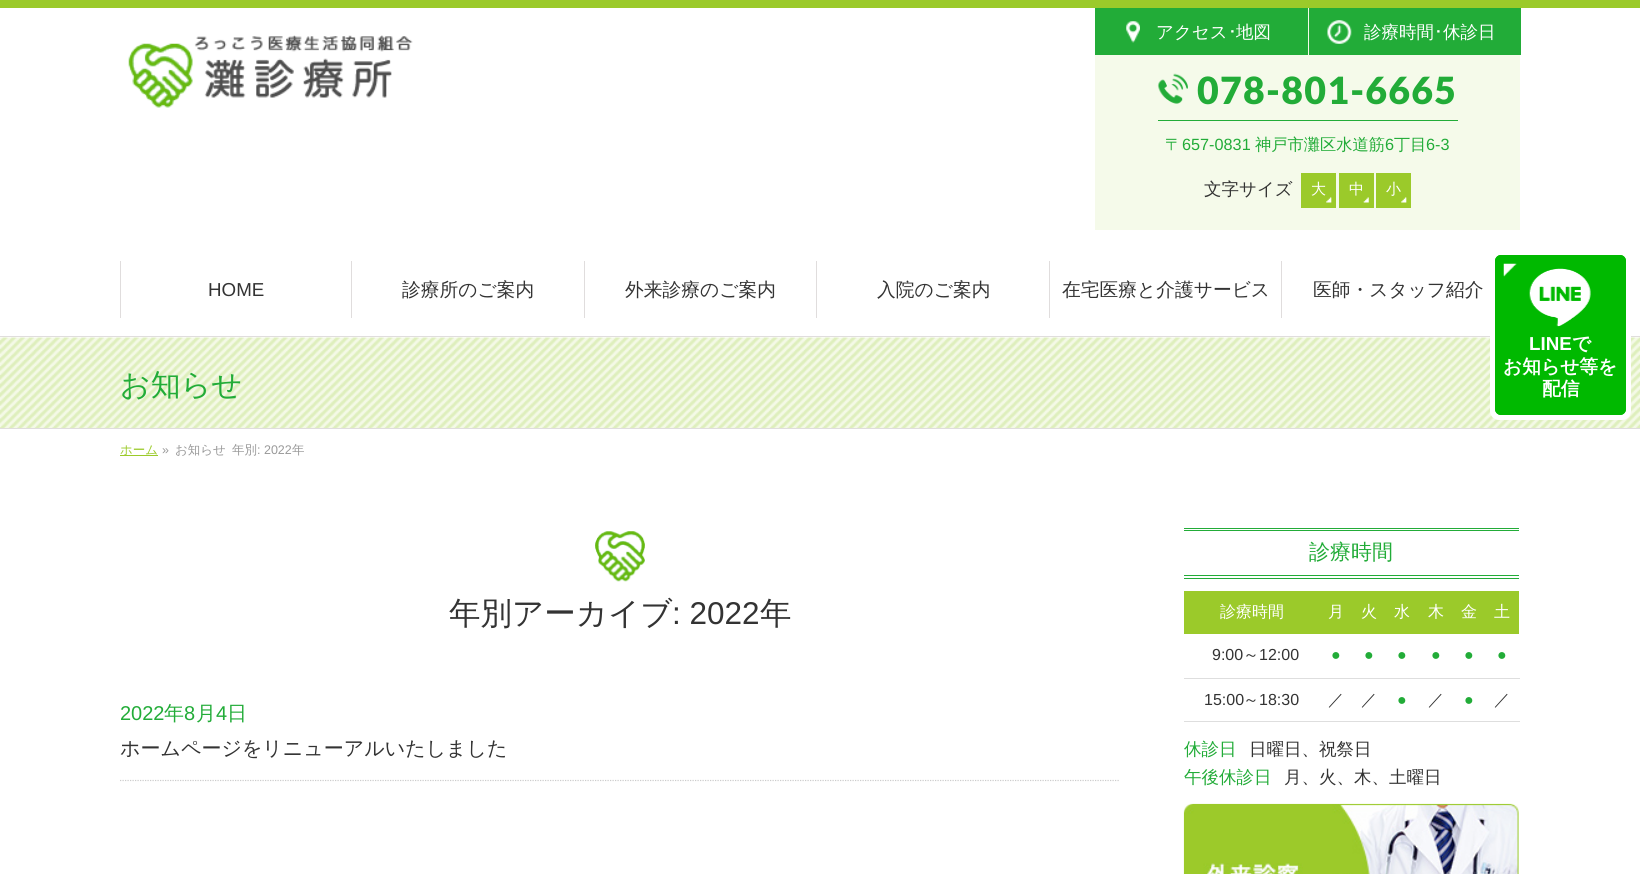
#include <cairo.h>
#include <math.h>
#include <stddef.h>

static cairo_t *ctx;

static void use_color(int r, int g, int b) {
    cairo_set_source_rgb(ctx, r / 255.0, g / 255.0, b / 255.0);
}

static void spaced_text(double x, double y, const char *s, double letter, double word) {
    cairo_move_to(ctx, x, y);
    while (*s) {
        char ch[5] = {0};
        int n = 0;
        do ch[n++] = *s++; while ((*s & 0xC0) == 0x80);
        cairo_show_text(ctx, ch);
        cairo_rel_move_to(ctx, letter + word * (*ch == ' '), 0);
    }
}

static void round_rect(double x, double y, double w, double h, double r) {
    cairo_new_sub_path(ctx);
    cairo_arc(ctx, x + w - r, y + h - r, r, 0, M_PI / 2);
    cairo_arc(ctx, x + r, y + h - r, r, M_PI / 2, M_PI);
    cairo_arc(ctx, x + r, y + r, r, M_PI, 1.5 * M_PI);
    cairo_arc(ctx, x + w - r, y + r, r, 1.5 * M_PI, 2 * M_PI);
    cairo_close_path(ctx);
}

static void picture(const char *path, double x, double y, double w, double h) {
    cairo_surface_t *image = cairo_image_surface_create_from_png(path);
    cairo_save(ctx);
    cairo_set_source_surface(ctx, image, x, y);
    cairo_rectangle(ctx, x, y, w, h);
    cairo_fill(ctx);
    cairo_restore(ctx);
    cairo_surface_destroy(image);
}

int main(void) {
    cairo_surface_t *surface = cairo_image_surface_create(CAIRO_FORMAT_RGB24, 1640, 874);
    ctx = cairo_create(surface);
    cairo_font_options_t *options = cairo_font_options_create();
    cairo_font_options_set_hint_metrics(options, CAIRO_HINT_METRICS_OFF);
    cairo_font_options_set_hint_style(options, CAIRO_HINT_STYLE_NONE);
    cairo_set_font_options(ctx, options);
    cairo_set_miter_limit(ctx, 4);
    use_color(255, 255, 255);
    cairo_paint(ctx);
    use_color(155, 202, 42);
    cairo_rectangle(ctx, 0, 0, 1640, 8);
    cairo_fill(ctx);
    picture("img1.png", 128, 35, 285, 73);
    use_color(245, 250, 234);
    cairo_rectangle(ctx, 1095, 8, 425, 222);
    cairo_fill(ctx);
    use_color(34, 172, 56);
    cairo_rectangle(ctx, 1095, 8, 213, 47);
    cairo_fill(ctx);
    picture("img2.png", 1126, 21, 14, 22);
    cairo_select_font_face(ctx, "WenQuanYi Zen Hei Medium", CAIRO_FONT_SLANT_NORMAL, CAIRO_FONT_WEIGHT_NORMAL);
    cairo_set_font_size(ctx, 17.5);
    use_color(255, 255, 255);
    cairo_move_to(ctx, 1156, 38);
    cairo_show_text(ctx, "アクセス");
    cairo_select_font_face(ctx, "IPAPGothic", CAIRO_FONT_SLANT_NORMAL, CAIRO_FONT_WEIGHT_NORMAL);
    cairo_move_to(ctx, 1228, 38);
    cairo_show_text(ctx, "･");
    cairo_select_font_face(ctx, "WenQuanYi Zen Hei Medium", CAIRO_FONT_SLANT_NORMAL, CAIRO_FONT_WEIGHT_NORMAL);
    cairo_move_to(ctx, 1236, 38);
    cairo_show_text(ctx, "地図");
    use_color(34, 172, 56);
    cairo_rectangle(ctx, 1309, 8, 212, 47);
    cairo_fill(ctx);
    picture("img3.png", 1327, 20, 25, 24);
    use_color(255, 255, 255);
    cairo_move_to(ctx, 1364, 38);
    cairo_show_text(ctx, "診療時間");
    cairo_select_font_face(ctx, "IPAPGothic", CAIRO_FONT_SLANT_NORMAL, CAIRO_FONT_WEIGHT_NORMAL);
    cairo_move_to(ctx, 1434, 38);
    cairo_show_text(ctx, "･");
    cairo_select_font_face(ctx, "WenQuanYi Zen Hei Medium", CAIRO_FONT_SLANT_NORMAL, CAIRO_FONT_WEIGHT_NORMAL);
    cairo_move_to(ctx, 1443, 38);
    cairo_show_text(ctx, "休診日");
    use_color(34, 172, 56);
    cairo_rectangle(ctx, 1158, 120, 300, 1);
    cairo_fill(ctx);
    picture("img4.png", 1157, 73, 31, 31);
    cairo_select_font_face(ctx, "Lato Black", CAIRO_FONT_SLANT_NORMAL, CAIRO_FONT_WEIGHT_NORMAL);
    cairo_set_font_size(ctx, 37.5);
    spaced_text(1197, 104, "078-801-6665", 1.25, 0);
    cairo_select_font_face(ctx, "WenQuanYi Zen Hei Medium", CAIRO_FONT_SLANT_NORMAL, CAIRO_FONT_WEIGHT_NORMAL);
    cairo_set_font_size(ctx, 16.25);
    cairo_move_to(ctx, 1165, 150);
    cairo_show_text(ctx, "〒");
    cairo_select_font_face(ctx, "Liberation Sans", CAIRO_FONT_SLANT_NORMAL, CAIRO_FONT_WEIGHT_NORMAL);
    cairo_move_to(ctx, 1182, 150);
    cairo_show_text(ctx, "657-0831");
    cairo_select_font_face(ctx, "WenQuanYi Zen Hei Medium", CAIRO_FONT_SLANT_NORMAL, CAIRO_FONT_WEIGHT_NORMAL);
    cairo_move_to(ctx, 1255, 150);
    cairo_show_text(ctx, "神戸市灘区水道筋");
    cairo_select_font_face(ctx, "Liberation Sans", CAIRO_FONT_SLANT_NORMAL, CAIRO_FONT_WEIGHT_NORMAL);
    cairo_move_to(ctx, 1385, 150);
    cairo_show_text(ctx, "6");
    cairo_select_font_face(ctx, "WenQuanYi Zen Hei Medium", CAIRO_FONT_SLANT_NORMAL, CAIRO_FONT_WEIGHT_NORMAL);
    cairo_move_to(ctx, 1394, 150);
    cairo_show_text(ctx, "丁目");
    cairo_select_font_face(ctx, "Liberation Sans", CAIRO_FONT_SLANT_NORMAL, CAIRO_FONT_WEIGHT_NORMAL);
    cairo_move_to(ctx, 1426, 150);
    cairo_show_text(ctx, "6-3");
    cairo_select_font_face(ctx, "WenQuanYi Zen Hei Medium", CAIRO_FONT_SLANT_NORMAL, CAIRO_FONT_WEIGHT_NORMAL);
    cairo_set_font_size(ctx, 17.5);
    use_color(51, 51, 51);
    cairo_move_to(ctx, 1204, 195);
    cairo_show_text(ctx, "文字サイズ");
    use_color(155, 202, 42);
    cairo_rectangle(ctx, 1301, 173, 35, 35);
    cairo_fill(ctx);
    picture("img5.png", 1326, 197, 6, 6);
    cairo_set_font_size(ctx, 15);
    use_color(255, 255, 255);
    cairo_move_to(ctx, 1311, 194);
    cairo_show_text(ctx, "大");
    use_color(155, 202, 42);
    cairo_rectangle(ctx, 1339, 173, 35, 35);
    cairo_fill(ctx);
    picture("img6.png", 1363, 197, 6, 6);
    use_color(255, 255, 255);
    cairo_move_to(ctx, 1349, 194);
    cairo_show_text(ctx, "中");
    use_color(155, 202, 42);
    cairo_rectangle(ctx, 1376, 173, 35, 35);
    cairo_fill(ctx);
    picture("img5.png", 1401, 197, 6, 6);
    use_color(255, 255, 255);
    cairo_move_to(ctx, 1386, 194);
    cairo_show_text(ctx, "小");
    use_color(224, 221, 221);
    cairo_rectangle(ctx, 0, 336, 1640, 1);
    cairo_fill(ctx);
    cairo_rectangle(ctx, 351, 261, 1, 57);
    cairo_fill(ctx);
    cairo_rectangle(ctx, 120, 261, 1, 57);
    cairo_fill(ctx);
    cairo_select_font_face(ctx, "Liberation Sans", CAIRO_FONT_SLANT_NORMAL, CAIRO_FONT_WEIGHT_NORMAL);
    cairo_set_font_size(ctx, 18.75);
    use_color(51, 51, 51);
    cairo_move_to(ctx, 208, 296);
    cairo_show_text(ctx, "HOME");
    use_color(224, 221, 221);
    cairo_rectangle(ctx, 584, 261, 1, 57);
    cairo_fill(ctx);
    cairo_select_font_face(ctx, "WenQuanYi Zen Hei Medium", CAIRO_FONT_SLANT_NORMAL, CAIRO_FONT_WEIGHT_NORMAL);
    use_color(51, 51, 51);
    cairo_move_to(ctx, 402, 296);
    cairo_show_text(ctx, "診療所のご案内");
    use_color(224, 221, 221);
    cairo_rectangle(ctx, 816, 261, 1, 57);
    cairo_fill(ctx);
    use_color(51, 51, 51);
    cairo_move_to(ctx, 625, 296);
    cairo_show_text(ctx, "外来診療のご案内");
    use_color(224, 221, 221);
    cairo_rectangle(ctx, 1049, 261, 1, 57);
    cairo_fill(ctx);
    use_color(51, 51, 51);
    cairo_move_to(ctx, 877, 296);
    cairo_show_text(ctx, "入院のご案内");
    use_color(224, 221, 221);
    cairo_rectangle(ctx, 1281, 261, 1, 57);
    cairo_fill(ctx);
    use_color(51, 51, 51);
    cairo_move_to(ctx, 1062, 296);
    cairo_show_text(ctx, "在宅医療と介護サービス");
    cairo_move_to(ctx, 1313, 296);
    cairo_show_text(ctx, "医師・スタッフ紹介");
    picture("img7.png", 0, 337, 1640, 91);
    use_color(224, 221, 221);
    cairo_rectangle(ctx, 0, 428, 1640, 1);
    cairo_fill(ctx);
    cairo_set_font_size(ctx, 30);
    use_color(34, 172, 56);
    cairo_move_to(ctx, 120, 395);
    cairo_show_text(ctx, "お知らせ");
    use_color(155, 202, 42);
    cairo_rectangle(ctx, 120, 455, 38, 1);
    cairo_fill(ctx);
    cairo_set_font_size(ctx, 12.5);
    cairo_move_to(ctx, 120, 454);
    cairo_show_text(ctx, "ホーム");
    cairo_select_font_face(ctx, "Liberation Sans", CAIRO_FONT_SLANT_NORMAL, CAIRO_FONT_WEIGHT_NORMAL);
    use_color(153, 153, 153);
    cairo_move_to(ctx, 162, 454);
    cairo_show_text(ctx, "»");
    cairo_select_font_face(ctx, "WenQuanYi Zen Hei Medium", CAIRO_FONT_SLANT_NORMAL, CAIRO_FONT_WEIGHT_NORMAL);
    cairo_move_to(ctx, 175, 454);
    cairo_show_text(ctx, "お知らせ");
    cairo_move_to(ctx, 232, 454);
    cairo_show_text(ctx, "年別");
    cairo_select_font_face(ctx, "Liberation Sans", CAIRO_FONT_SLANT_NORMAL, CAIRO_FONT_WEIGHT_NORMAL);
    cairo_move_to(ctx, 257, 454);
    cairo_show_text(ctx, ": 2022");
    cairo_select_font_face(ctx, "WenQuanYi Zen Hei Medium", CAIRO_FONT_SLANT_NORMAL, CAIRO_FONT_WEIGHT_NORMAL);
    cairo_move_to(ctx, 292, 454);
    cairo_show_text(ctx, "年");
    picture("img8.png", 595, 531, 50, 51);
    cairo_set_font_size(ctx, 31.5);
    use_color(51, 51, 51);
    cairo_move_to(ctx, 449, 624);
    cairo_show_text(ctx, "年別アーカイブ");
    cairo_select_font_face(ctx, "Liberation Sans", CAIRO_FONT_SLANT_NORMAL, CAIRO_FONT_WEIGHT_NORMAL);
    cairo_move_to(ctx, 672, 624);
    cairo_show_text(ctx, ": 2022");
    cairo_select_font_face(ctx, "WenQuanYi Zen Hei Medium", CAIRO_FONT_SLANT_NORMAL, CAIRO_FONT_WEIGHT_NORMAL);
    cairo_move_to(ctx, 760, 624);
    cairo_show_text(ctx, "年");
    cairo_new_path(ctx);
    cairo_move_to(ctx, 120, 780.5);
    cairo_line_to(ctx, 1120, 780.5);
    use_color(204, 204, 204);
    cairo_set_line_width(ctx, 1.2);
    cairo_set_dash(ctx, (double[]){1.25, 1.25}, 2, 0);
    cairo_stroke(ctx);
    cairo_select_font_face(ctx, "Liberation Sans", CAIRO_FONT_SLANT_NORMAL, CAIRO_FONT_WEIGHT_NORMAL);
    cairo_set_font_size(ctx, 20);
    use_color(34, 172, 56);
    cairo_move_to(ctx, 120, 720);
    cairo_show_text(ctx, "2022");
    cairo_select_font_face(ctx, "WenQuanYi Zen Hei Medium", CAIRO_FONT_SLANT_NORMAL, CAIRO_FONT_WEIGHT_NORMAL);
    cairo_move_to(ctx, 164, 720);
    cairo_show_text(ctx, "年");
    cairo_select_font_face(ctx, "Liberation Sans", CAIRO_FONT_SLANT_NORMAL, CAIRO_FONT_WEIGHT_NORMAL);
    cairo_move_to(ctx, 184, 720);
    cairo_show_text(ctx, "8");
    cairo_select_font_face(ctx, "WenQuanYi Zen Hei Medium", CAIRO_FONT_SLANT_NORMAL, CAIRO_FONT_WEIGHT_NORMAL);
    cairo_move_to(ctx, 196, 720);
    cairo_show_text(ctx, "月");
    cairo_select_font_face(ctx, "Liberation Sans", CAIRO_FONT_SLANT_NORMAL, CAIRO_FONT_WEIGHT_NORMAL);
    cairo_move_to(ctx, 216, 720);
    cairo_show_text(ctx, "4");
    cairo_select_font_face(ctx, "WenQuanYi Zen Hei Medium", CAIRO_FONT_SLANT_NORMAL, CAIRO_FONT_WEIGHT_NORMAL);
    cairo_move_to(ctx, 227, 720);
    cairo_show_text(ctx, "日");
    use_color(51, 51, 51);
    cairo_move_to(ctx, 120, 755);
    cairo_show_text(ctx, "ホームページをリニューアルいたしました");
    use_color(34, 172, 56);
    cairo_rectangle(ctx, 1184, 528, 335, 1);
    cairo_fill(ctx);
    cairo_rectangle(ctx, 1184, 530, 335, 1);
    cairo_fill(ctx);
    cairo_rectangle(ctx, 1184, 575, 335, 1);
    cairo_fill(ctx);
    cairo_rectangle(ctx, 1184, 578, 335, 1);
    cairo_fill(ctx);
    cairo_set_font_size(ctx, 21);
    cairo_move_to(ctx, 1309, 559);
    cairo_show_text(ctx, "診療時間");
    use_color(155, 202, 42);
    cairo_rectangle(ctx, 1184, 591, 335, 43);
    cairo_fill(ctx);
    cairo_set_font_size(ctx, 16);
    use_color(255, 255, 255);
    cairo_move_to(ctx, 1220, 617);
    cairo_show_text(ctx, "診療時間");
    cairo_move_to(ctx, 1328, 617);
    cairo_show_text(ctx, "月");
    cairo_move_to(ctx, 1361, 617);
    cairo_show_text(ctx, "火");
    cairo_move_to(ctx, 1394, 617);
    cairo_show_text(ctx, "水");
    cairo_move_to(ctx, 1428, 617);
    cairo_show_text(ctx, "木");
    cairo_move_to(ctx, 1461, 617);
    cairo_show_text(ctx, "金");
    cairo_move_to(ctx, 1494, 617);
    cairo_show_text(ctx, "土");
    use_color(222, 222, 222);
    cairo_rectangle(ctx, 1184, 678, 336, 1);
    cairo_fill(ctx);
    cairo_select_font_face(ctx, "Liberation Sans", CAIRO_FONT_SLANT_NORMAL, CAIRO_FONT_WEIGHT_NORMAL);
    use_color(51, 51, 51);
    cairo_move_to(ctx, 1212, 660);
    cairo_show_text(ctx, "9:00");
    cairo_select_font_face(ctx, "WenQuanYi Zen Hei Medium", CAIRO_FONT_SLANT_NORMAL, CAIRO_FONT_WEIGHT_NORMAL);
    cairo_move_to(ctx, 1243, 660);
    cairo_show_text(ctx, "～");
    cairo_select_font_face(ctx, "Liberation Sans", CAIRO_FONT_SLANT_NORMAL, CAIRO_FONT_WEIGHT_NORMAL);
    cairo_move_to(ctx, 1259, 660);
    cairo_show_text(ctx, "12:00");
    use_color(34, 172, 56);
    cairo_move_to(ctx, 1331, 660);
    cairo_show_text(ctx, "●");
    cairo_move_to(ctx, 1364, 660);
    cairo_show_text(ctx, "●");
    cairo_move_to(ctx, 1397, 660);
    cairo_show_text(ctx, "●");
    cairo_move_to(ctx, 1431, 660);
    cairo_show_text(ctx, "●");
    cairo_move_to(ctx, 1464, 660);
    cairo_show_text(ctx, "●");
    cairo_move_to(ctx, 1497, 660);
    cairo_show_text(ctx, "●");
    use_color(222, 222, 222);
    cairo_rectangle(ctx, 1184, 721, 336, 1);
    cairo_fill(ctx);
    use_color(51, 51, 51);
    cairo_move_to(ctx, 1204, 705);
    cairo_show_text(ctx, "15:00");
    cairo_select_font_face(ctx, "WenQuanYi Zen Hei Medium", CAIRO_FONT_SLANT_NORMAL, CAIRO_FONT_WEIGHT_NORMAL);
    cairo_move_to(ctx, 1243, 705);
    cairo_show_text(ctx, "～");
    cairo_select_font_face(ctx, "Liberation Sans", CAIRO_FONT_SLANT_NORMAL, CAIRO_FONT_WEIGHT_NORMAL);
    cairo_move_to(ctx, 1259, 705);
    cairo_show_text(ctx, "18:30");
    cairo_select_font_face(ctx, "WenQuanYi Zen Hei Medium", CAIRO_FONT_SLANT_NORMAL, CAIRO_FONT_WEIGHT_NORMAL);
    cairo_move_to(ctx, 1328, 705);
    cairo_show_text(ctx, "／");
    cairo_move_to(ctx, 1361, 705);
    cairo_show_text(ctx, "／");
    cairo_select_font_face(ctx, "Liberation Sans", CAIRO_FONT_SLANT_NORMAL, CAIRO_FONT_WEIGHT_NORMAL);
    use_color(34, 172, 56);
    cairo_move_to(ctx, 1397, 705);
    cairo_show_text(ctx, "●");
    cairo_select_font_face(ctx, "WenQuanYi Zen Hei Medium", CAIRO_FONT_SLANT_NORMAL, CAIRO_FONT_WEIGHT_NORMAL);
    use_color(51, 51, 51);
    cairo_move_to(ctx, 1428, 705);
    cairo_show_text(ctx, "／");
    cairo_select_font_face(ctx, "Liberation Sans", CAIRO_FONT_SLANT_NORMAL, CAIRO_FONT_WEIGHT_NORMAL);
    use_color(34, 172, 56);
    cairo_move_to(ctx, 1464, 705);
    cairo_show_text(ctx, "●");
    cairo_select_font_face(ctx, "WenQuanYi Zen Hei Medium", CAIRO_FONT_SLANT_NORMAL, CAIRO_FONT_WEIGHT_NORMAL);
    use_color(51, 51, 51);
    cairo_move_to(ctx, 1494, 705);
    cairo_show_text(ctx, "／");
    cairo_set_font_size(ctx, 17.5);
    use_color(34, 172, 56);
    cairo_move_to(ctx, 1184, 755);
    cairo_show_text(ctx, "休診日");
    use_color(51, 51, 51);
    cairo_move_to(ctx, 1249, 755);
    cairo_show_text(ctx, "日曜日、祝祭日");
    use_color(34, 172, 56);
    cairo_move_to(ctx, 1184, 783);
    cairo_show_text(ctx, "午後休診日");
    use_color(51, 51, 51);
    cairo_move_to(ctx, 1284, 783);
    cairo_show_text(ctx, "月、火、木、土曜日");
    picture("img9.png", 1183, 803, 336, 71);
    use_color(255, 255, 255);
    round_rect(1490, 250, 141, 170, 9);
    cairo_fill(ctx);
    use_color(0, 185, 0);
    round_rect(1495, 255, 131, 160, 6);
    cairo_fill(ctx);
    picture("img10.png", 1503, 263, 88, 64);
    round_rect(1496.5, 256.5, 128, 157, 4.5);
    cairo_set_line_width(ctx, 3);
    cairo_set_dash(ctx, NULL, 0, 0);
    cairo_stroke(ctx);
    cairo_select_font_face(ctx, "Liberation Sans", CAIRO_FONT_SLANT_NORMAL, CAIRO_FONT_WEIGHT_BOLD);
    cairo_set_font_size(ctx, 18.75);
    use_color(255, 255, 255);
    cairo_move_to(ctx, 1529, 350);
    cairo_show_text(ctx, "LINE");
    cairo_select_font_face(ctx, "WenQuanYi Zen Hei", CAIRO_FONT_SLANT_NORMAL, CAIRO_FONT_WEIGHT_BOLD);
    cairo_move_to(ctx, 1572, 350);
    cairo_show_text(ctx, "で");
    cairo_move_to(ctx, 1503, 373);
    cairo_show_text(ctx, "お知らせ等を");
    cairo_move_to(ctx, 1542, 395);
    cairo_show_text(ctx, "配信");
    cairo_surface_write_to_png(surface, "result.png");
    cairo_font_options_destroy(options);
    cairo_destroy(ctx);
    cairo_surface_destroy(surface);
    return 0;
}
